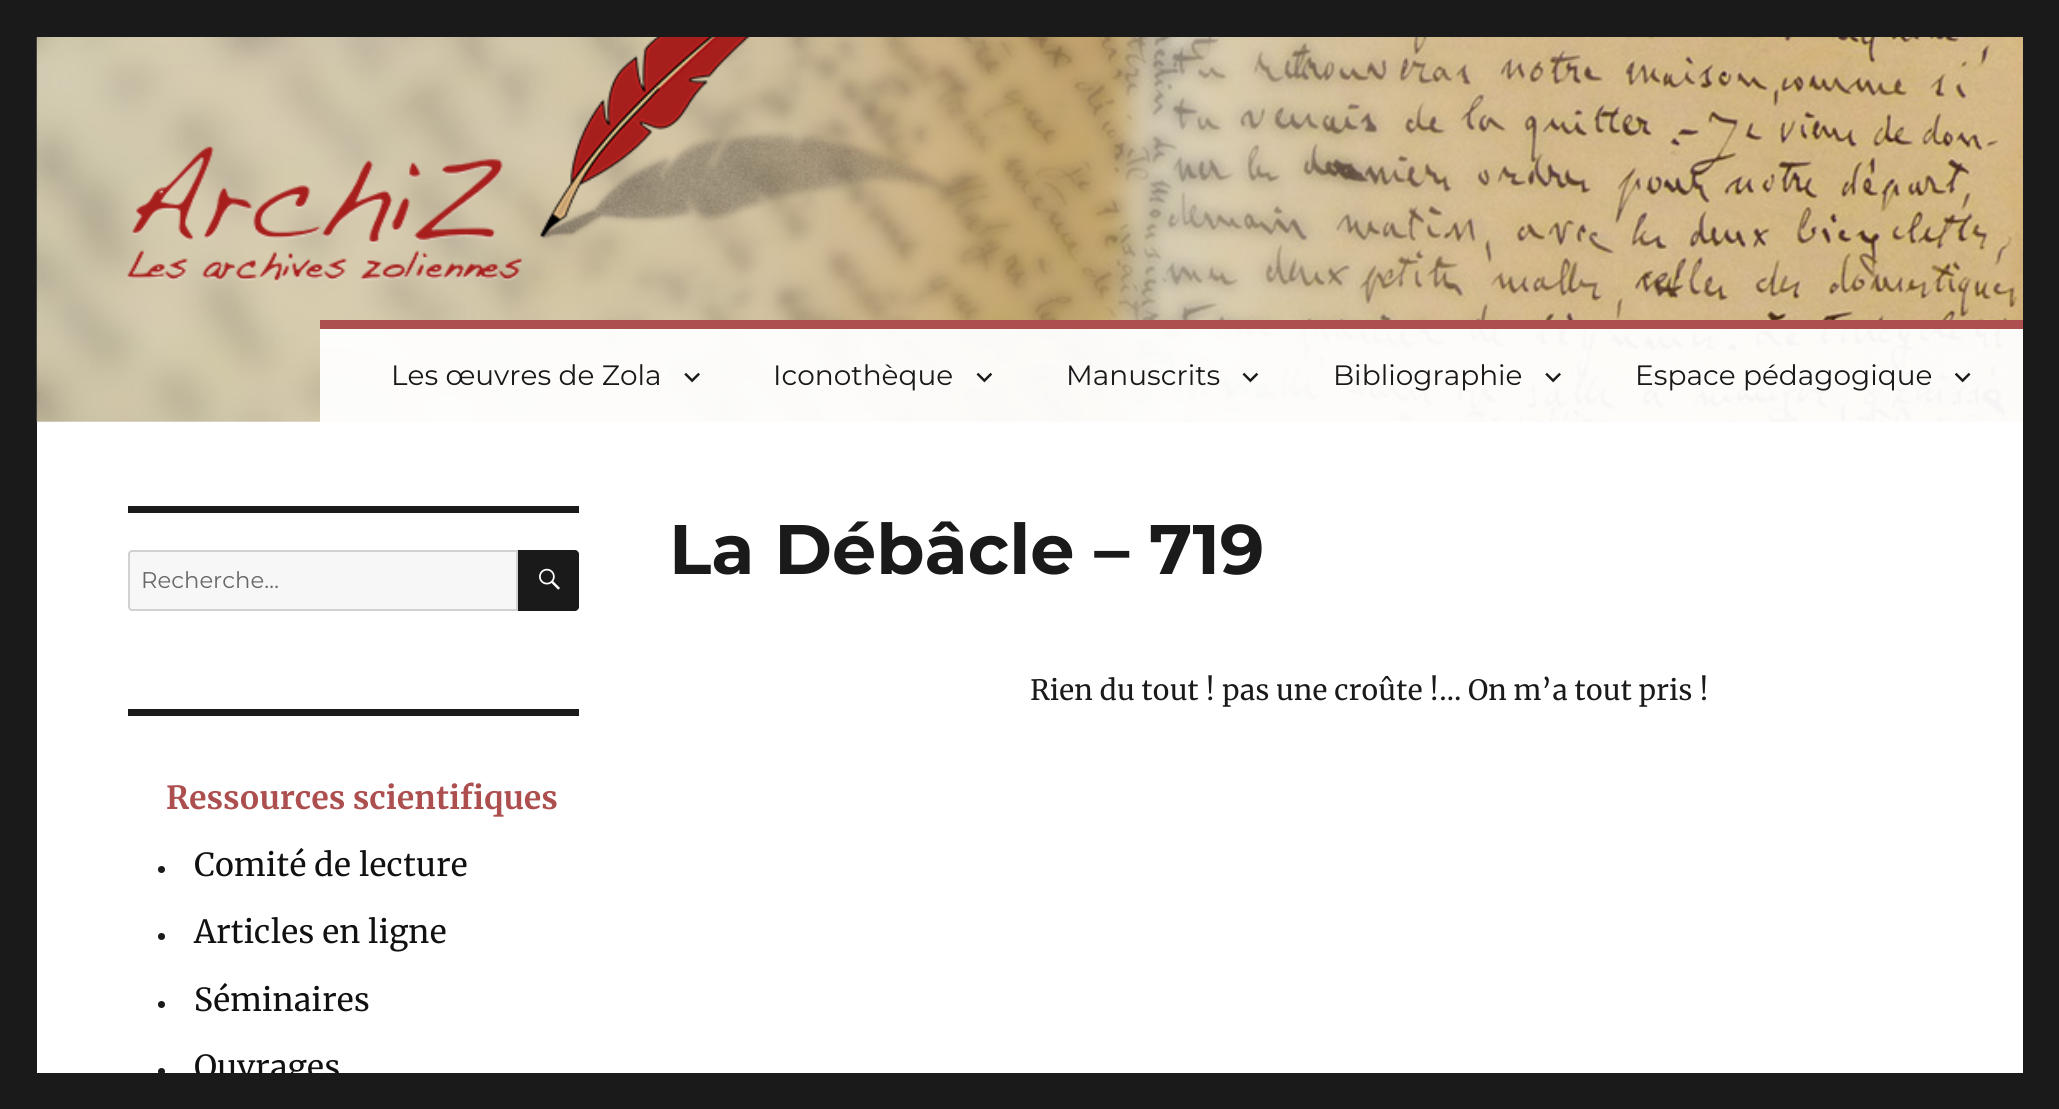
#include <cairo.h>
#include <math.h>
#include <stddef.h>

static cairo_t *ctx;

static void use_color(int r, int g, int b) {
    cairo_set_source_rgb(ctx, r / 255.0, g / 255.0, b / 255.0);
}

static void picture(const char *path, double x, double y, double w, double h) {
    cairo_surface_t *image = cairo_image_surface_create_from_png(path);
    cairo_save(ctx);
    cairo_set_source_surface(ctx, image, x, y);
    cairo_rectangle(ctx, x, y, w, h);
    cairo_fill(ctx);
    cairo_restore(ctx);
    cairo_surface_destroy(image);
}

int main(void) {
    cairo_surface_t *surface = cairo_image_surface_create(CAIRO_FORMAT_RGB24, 2059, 1109);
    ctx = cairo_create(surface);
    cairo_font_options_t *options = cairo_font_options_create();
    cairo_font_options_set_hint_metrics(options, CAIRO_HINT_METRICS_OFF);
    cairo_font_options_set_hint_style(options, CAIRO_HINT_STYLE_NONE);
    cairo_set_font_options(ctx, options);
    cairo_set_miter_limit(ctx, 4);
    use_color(26, 26, 26);
    cairo_paint(ctx);
    use_color(255, 255, 255);
    cairo_rectangle(ctx, 37, 421, 1986, 652);
    cairo_fill(ctx);
    picture("img1.png", 36, 37, 1987, 385);
    picture("img2.png", 127, 37, 828, 245);
    cairo_set_source_rgba(ctx, 1, 1, 1, 0.95);
    cairo_rectangle(ctx, 320, 329, 1703, 93);
    cairo_fill(ctx);
    use_color(173, 79, 79);
    cairo_rectangle(ctx, 320, 320, 1703, 9);
    cairo_fill(ctx);
    cairo_select_font_face(ctx, "Montserrat Thin", CAIRO_FONT_SLANT_NORMAL, CAIRO_FONT_WEIGHT_NORMAL);
    cairo_set_font_size(ctx, 28);
    use_color(26, 26, 26);
    cairo_move_to(ctx, 391, 385);
    cairo_show_text(ctx, "Les œuvres de Zola");
    picture("img3.png", 684, 372, 16, 11);
    cairo_move_to(ctx, 773, 385);
    cairo_show_text(ctx, "Iconothèque");
    picture("img4.png", 976, 372, 17, 11);
    cairo_move_to(ctx, 1066, 385);
    cairo_show_text(ctx, "Manuscrits");
    picture("img5.png", 1242, 372, 17, 11);
    cairo_move_to(ctx, 1333, 385);
    cairo_show_text(ctx, "Bibliographie");
    picture("img6.png", 1545, 372, 16, 11);
    cairo_move_to(ctx, 1635, 385);
    cairo_show_text(ctx, "Espace pédagogique");
    picture("img7.png", 1954, 372, 17, 11);
    cairo_rectangle(ctx, 128, 506, 451, 7);
    cairo_fill(ctx);
    use_color(247, 247, 247);
    cairo_new_path(ctx);
    cairo_move_to(ctx, 132, 551);
    cairo_line_to(ctx, 517, 551);
    cairo_line_to(ctx, 517, 610);
    cairo_line_to(ctx, 132, 610);
    cairo_curve_to(ctx, 130.5, 610, 129, 608.5, 129, 607);
    cairo_line_to(ctx, 129, 554);
    cairo_curve_to(ctx, 129, 552.5, 130.5, 551, 132, 551);
    cairo_close_path(ctx);
    cairo_fill_preserve(ctx);
    use_color(209, 209, 209);
    cairo_stroke(ctx);
    cairo_set_font_size(ctx, 22.75);
    use_color(104, 104, 104);
    cairo_move_to(ctx, 141, 588);
    cairo_show_text(ctx, "Recherche…");
    use_color(26, 26, 26);
    cairo_new_path(ctx);
    cairo_move_to(ctx, 518, 550);
    cairo_line_to(ctx, 575, 550);
    cairo_curve_to(ctx, 577, 550, 579, 552, 579, 554);
    cairo_line_to(ctx, 579, 607);
    cairo_curve_to(ctx, 579, 609, 577, 611, 575, 611);
    cairo_line_to(ctx, 518, 611);
    cairo_close_path(ctx);
    cairo_fill(ctx);
    picture("img8.png", 539, 568, 21, 22);
    cairo_rectangle(ctx, 128, 709, 451, 7);
    cairo_fill(ctx);
    cairo_select_font_face(ctx, "Merriweather", CAIRO_FONT_SLANT_NORMAL, CAIRO_FONT_WEIGHT_BOLD);
    cairo_set_font_size(ctx, 31.8);
    use_color(173, 79, 79);
    cairo_move_to(ctx, 166, 809);
    cairo_show_text(ctx, "Ressources scientifiques");
    use_color(26, 26, 26);
    cairo_new_path(ctx);
    cairo_arc(ctx, 161.5, 869.5, 3.5, 0, 2 * M_PI);
    cairo_fill(ctx);
    cairo_select_font_face(ctx, "Merriweather", CAIRO_FONT_SLANT_NORMAL, CAIRO_FONT_WEIGHT_NORMAL);
    use_color(17, 17, 17);
    cairo_move_to(ctx, 194, 876);
    cairo_show_text(ctx, "Comité de lecture");
    use_color(26, 26, 26);
    cairo_new_path(ctx);
    cairo_arc(ctx, 161.5, 936.5, 3.5, 0, 2 * M_PI);
    cairo_fill(ctx);
    use_color(17, 17, 17);
    cairo_move_to(ctx, 194, 943);
    cairo_show_text(ctx, "Articles en ligne");
    use_color(26, 26, 26);
    cairo_new_path(ctx);
    cairo_arc(ctx, 161.5, 1004.5, 3.5, 0, 2 * M_PI);
    cairo_fill(ctx);
    use_color(17, 17, 17);
    cairo_move_to(ctx, 194, 1011);
    cairo_show_text(ctx, "Séminaires");
    use_color(26, 26, 26);
    cairo_new_path(ctx);
    cairo_arc(ctx, 161.5, 1071.5, 3.5, 0, 2 * M_PI);
    cairo_fill(ctx);
    use_color(17, 17, 17);
    cairo_move_to(ctx, 194, 1078);
    cairo_show_text(ctx, "Ouvrages");
    cairo_select_font_face(ctx, "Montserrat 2 Thin", CAIRO_FONT_SLANT_NORMAL, CAIRO_FONT_WEIGHT_NORMAL);
    cairo_set_font_size(ctx, 70);
    use_color(26, 26, 26);
    cairo_move_to(ctx, 669, 574);
    cairo_show_text(ctx, "La Débâcle – 719");
    cairo_select_font_face(ctx, "Merriweather", CAIRO_FONT_SLANT_NORMAL, CAIRO_FONT_WEIGHT_NORMAL);
    cairo_set_font_size(ctx, 28);
    cairo_move_to(ctx, 1030, 700);
    cairo_show_text(ctx, "Rien du tout ! pas une croûte !… On m’a tout pris !");
    cairo_rectangle(ctx, 197, 1073, 142, 14);
    cairo_fill(ctx);
    cairo_surface_write_to_png(surface, "result.png");
    cairo_font_options_destroy(options);
    cairo_destroy(ctx);
    cairo_surface_destroy(surface);
    return 0;
}
